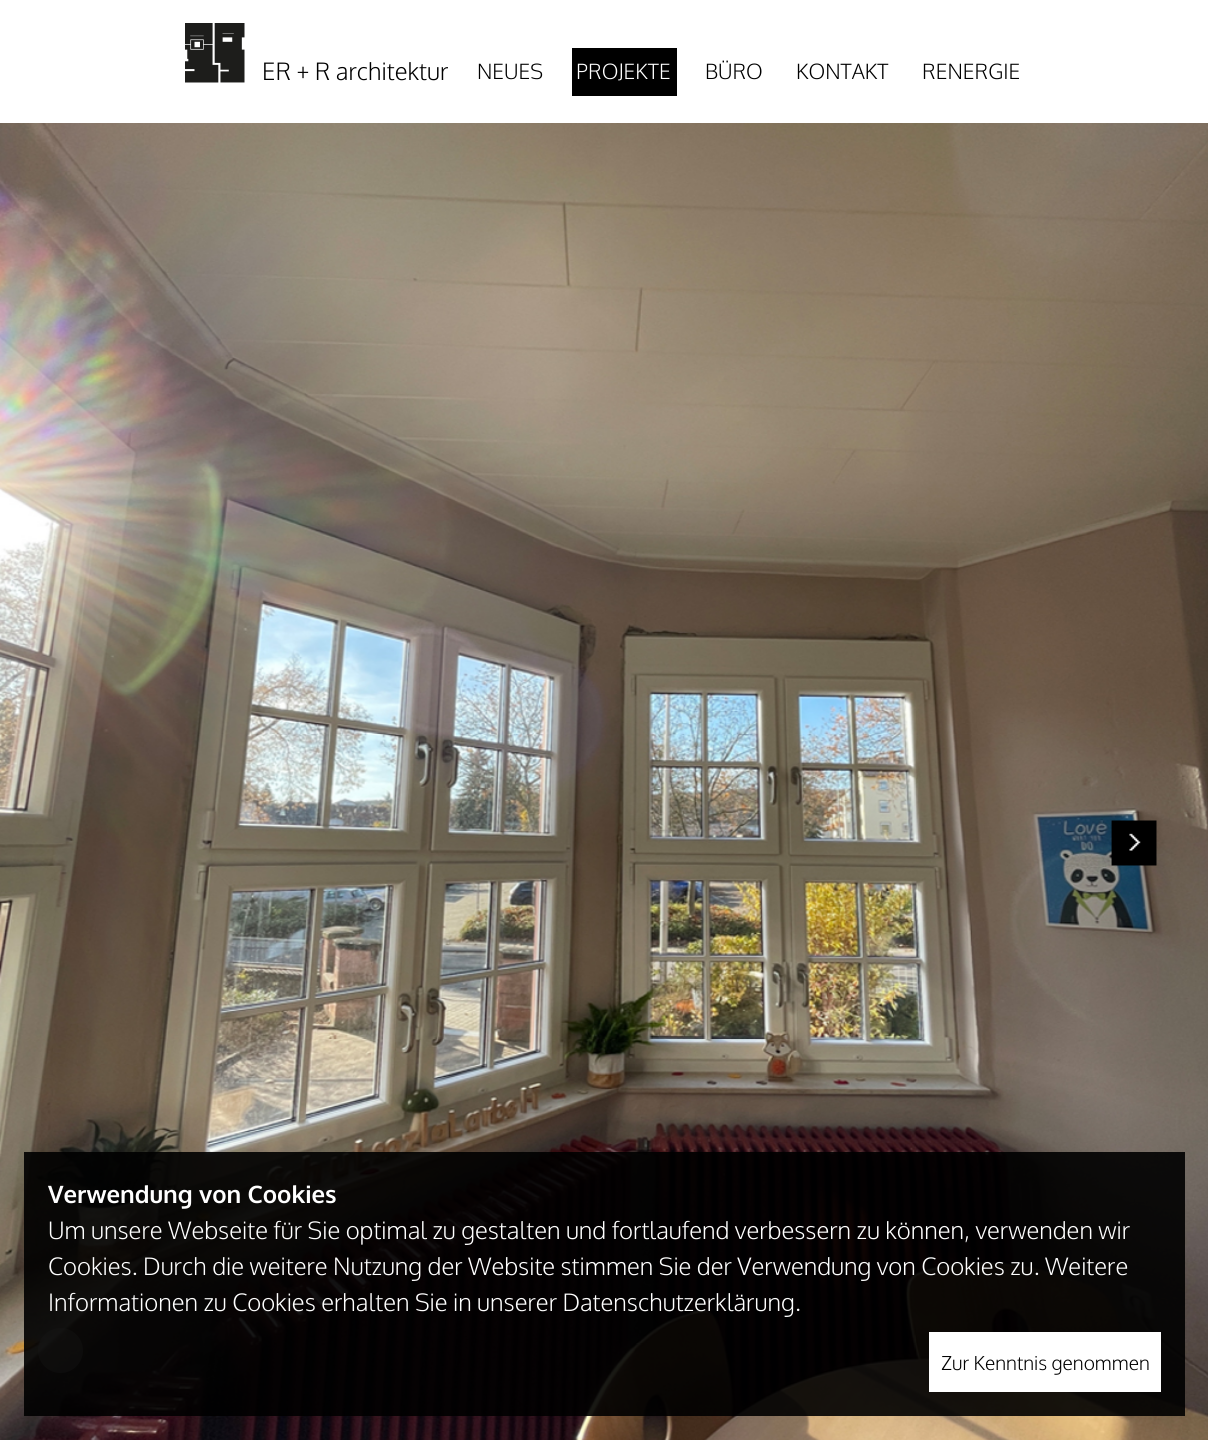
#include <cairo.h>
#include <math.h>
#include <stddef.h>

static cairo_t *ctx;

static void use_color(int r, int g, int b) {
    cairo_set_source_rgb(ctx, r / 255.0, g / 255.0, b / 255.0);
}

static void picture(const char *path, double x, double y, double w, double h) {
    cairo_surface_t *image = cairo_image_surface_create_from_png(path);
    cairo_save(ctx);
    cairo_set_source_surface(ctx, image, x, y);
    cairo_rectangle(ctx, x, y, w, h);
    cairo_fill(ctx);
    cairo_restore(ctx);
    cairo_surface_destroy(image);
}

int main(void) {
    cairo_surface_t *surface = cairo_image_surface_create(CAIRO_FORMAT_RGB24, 1208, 1440);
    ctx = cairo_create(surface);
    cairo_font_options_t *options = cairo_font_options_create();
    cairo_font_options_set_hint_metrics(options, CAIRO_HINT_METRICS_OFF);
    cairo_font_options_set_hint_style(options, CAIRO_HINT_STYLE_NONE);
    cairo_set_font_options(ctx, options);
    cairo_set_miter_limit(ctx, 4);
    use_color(255, 255, 255);
    cairo_paint(ctx);
    picture("img1.png", 185, 23, 60, 60);
    cairo_select_font_face(ctx, "Oxygen Light", CAIRO_FONT_SLANT_NORMAL, CAIRO_FONT_WEIGHT_NORMAL);
    cairo_set_font_size(ctx, 24);
    use_color(0, 0, 0);
    cairo_move_to(ctx, 262, 80);
    cairo_show_text(ctx, "ER + R architektur");
    cairo_set_font_size(ctx, 21);
    cairo_move_to(ctx, 477, 79);
    cairo_show_text(ctx, "NEUES");
    cairo_rectangle(ctx, 572, 48, 105, 48);
    cairo_fill(ctx);
    use_color(255, 255, 255);
    cairo_move_to(ctx, 576, 79);
    cairo_show_text(ctx, "PROJEKTE");
    use_color(0, 0, 0);
    cairo_move_to(ctx, 705, 79);
    cairo_show_text(ctx, "BÜRO");
    cairo_move_to(ctx, 796, 79);
    cairo_show_text(ctx, "KONTAKT");
    cairo_move_to(ctx, 922, 79);
    cairo_show_text(ctx, "RENERGIE");
    picture("img2.png", 0, 123, 1208, 1317);
    picture("img3.png", 1111, 820, 46, 46);
    cairo_set_source_rgba(ctx, 1, 1, 1, 0.3);
    cairo_arc(ctx, 60.5, 1350.5, 22.5, 0, 2 * M_PI);
    cairo_fill(ctx);
    cairo_set_source_rgba(ctx, 0, 0, 0, 0.9);
    cairo_rectangle(ctx, 24, 1152, 1161, 264);
    cairo_fill(ctx);
    cairo_select_font_face(ctx, "Oxygen", CAIRO_FONT_SLANT_NORMAL, CAIRO_FONT_WEIGHT_BOLD);
    cairo_set_font_size(ctx, 24);
    use_color(255, 255, 255);
    cairo_move_to(ctx, 48, 1203);
    cairo_show_text(ctx, "Verwendung von Cookies");
    cairo_select_font_face(ctx, "Oxygen Light", CAIRO_FONT_SLANT_NORMAL, CAIRO_FONT_WEIGHT_NORMAL);
    cairo_move_to(ctx, 48, 1239);
    cairo_show_text(ctx, "Um unsere Webseite für Sie optimal zu gestalten und fortlaufend verbessern zu können, verwenden wir");
    cairo_move_to(ctx, 48, 1275);
    cairo_show_text(ctx, "Cookies. Durch die weitere Nutzung der Website stimmen Sie der Verwendung von Cookies zu. Weitere");
    cairo_move_to(ctx, 48, 1311);
    cairo_show_text(ctx, "Informationen zu Cookies erhalten Sie in unserer Datenschutzerklärung.");
    cairo_rectangle(ctx, 929, 1332, 232, 60);
    cairo_fill(ctx);
    cairo_set_font_size(ctx, 19.25);
    use_color(0, 0, 0);
    cairo_move_to(ctx, 941, 1370);
    cairo_show_text(ctx, "Zur Kenntnis genommen");
    cairo_surface_write_to_png(surface, "result.png");
    cairo_font_options_destroy(options);
    cairo_destroy(ctx);
    cairo_surface_destroy(surface);
    return 0;
}
